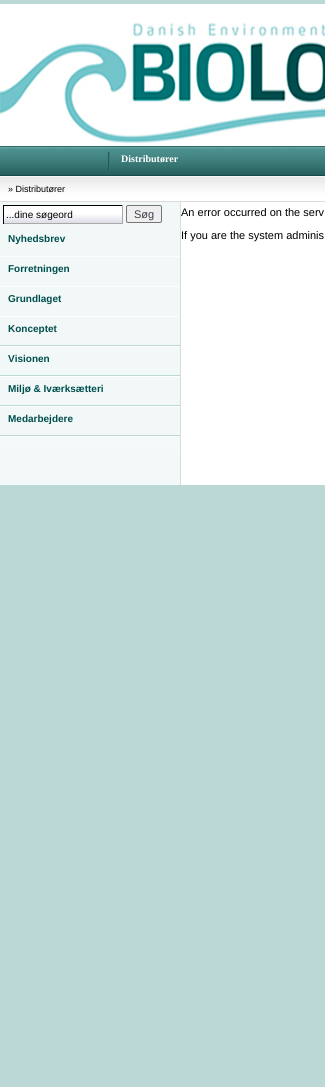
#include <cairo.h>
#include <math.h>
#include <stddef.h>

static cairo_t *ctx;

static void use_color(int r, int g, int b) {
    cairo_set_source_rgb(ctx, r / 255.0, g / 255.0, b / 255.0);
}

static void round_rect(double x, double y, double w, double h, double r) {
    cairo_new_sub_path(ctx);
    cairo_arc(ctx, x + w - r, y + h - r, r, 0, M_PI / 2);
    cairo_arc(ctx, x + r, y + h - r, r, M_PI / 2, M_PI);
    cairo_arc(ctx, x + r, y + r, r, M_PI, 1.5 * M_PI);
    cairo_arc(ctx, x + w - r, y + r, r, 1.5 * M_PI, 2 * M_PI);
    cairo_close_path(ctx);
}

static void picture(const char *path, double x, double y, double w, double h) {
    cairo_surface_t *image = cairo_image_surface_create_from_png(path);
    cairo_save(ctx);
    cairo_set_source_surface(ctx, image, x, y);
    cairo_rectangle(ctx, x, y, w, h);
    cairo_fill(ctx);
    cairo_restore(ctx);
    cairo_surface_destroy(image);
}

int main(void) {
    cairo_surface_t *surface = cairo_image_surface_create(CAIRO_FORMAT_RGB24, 325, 1087);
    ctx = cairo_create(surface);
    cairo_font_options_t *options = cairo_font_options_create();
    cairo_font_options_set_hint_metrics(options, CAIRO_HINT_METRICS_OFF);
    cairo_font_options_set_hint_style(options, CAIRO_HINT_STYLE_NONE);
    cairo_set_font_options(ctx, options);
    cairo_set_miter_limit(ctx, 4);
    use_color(187, 216, 214);
    cairo_paint(ctx);
    use_color(255, 255, 255);
    cairo_rectangle(ctx, 0, 144, 325, 2);
    cairo_fill(ctx);
    picture("img1.png", 0, 4, 325, 140);
    picture("img2.png", 0, 146, 325, 30);
    picture("img3.png", 108, 146, 109, 30);
    cairo_select_font_face(ctx, "Liberation Serif", CAIRO_FONT_SLANT_NORMAL, CAIRO_FONT_WEIGHT_BOLD);
    cairo_set_font_size(ctx, 10);
    cairo_move_to(ctx, 121, 162);
    cairo_show_text(ctx, "Distributører");
    use_color(247, 247, 247);
    cairo_rectangle(ctx, 0, 176, 325, 1);
    cairo_fill(ctx);
    picture("img4.png", 0, 177, 325, 24);
    use_color(220, 220, 220);
    cairo_rectangle(ctx, 0, 201, 325, 1);
    cairo_fill(ctx);
    cairo_select_font_face(ctx, "Liberation Sans", CAIRO_FONT_SLANT_NORMAL, CAIRO_FONT_WEIGHT_NORMAL);
    cairo_set_font_size(ctx, 9);
    use_color(0, 0, 0);
    cairo_move_to(ctx, 8, 192);
    cairo_show_text(ctx, "» Distributører");
    picture("img5.png", 0, 256, 180, 229);
    use_color(220, 220, 220);
    cairo_rectangle(ctx, 180, 201, 1, 284);
    cairo_fill(ctx);
    use_color(242, 248, 248);
    cairo_rectangle(ctx, 0, 202, 180, 54);
    cairo_fill(ctx);
    picture("img6.png", 4, 206, 118, 17);
    use_color(0, 0, 0);
    cairo_rectangle(ctx, 3, 205, 120, 1);
    cairo_fill(ctx);
    use_color(169, 169, 169);
    cairo_rectangle(ctx, 122, 205, 1, 19);
    cairo_fill(ctx);
    cairo_rectangle(ctx, 3, 223, 120, 1);
    cairo_fill(ctx);
    use_color(0, 0, 0);
    cairo_rectangle(ctx, 3, 205, 1, 19);
    cairo_fill(ctx);
    cairo_set_font_size(ctx, 10);
    cairo_move_to(ctx, 6, 218);
    cairo_show_text(ctx, "...dine søgeord");
    use_color(239, 239, 239);
    round_rect(126.5, 205.5, 35, 17, 1.5);
    cairo_fill_preserve(ctx);
    use_color(118, 118, 118);
    cairo_set_line_width(ctx, 1);
    cairo_stroke(ctx);
    cairo_set_font_size(ctx, 11);
    use_color(64, 62, 76);
    cairo_move_to(ctx, 134, 218);
    cairo_show_text(ctx, "Søg");
    cairo_select_font_face(ctx, "Liberation Sans", CAIRO_FONT_SLANT_NORMAL, CAIRO_FONT_WEIGHT_BOLD);
    cairo_set_font_size(ctx, 10);
    use_color(0, 77, 77);
    cairo_move_to(ctx, 8, 242);
    cairo_show_text(ctx, "Nyhedsbrev");
    use_color(242, 248, 248);
    cairo_rectangle(ctx, 0, 257, 180, 29);
    cairo_fill(ctx);
    use_color(0, 77, 77);
    cairo_move_to(ctx, 8, 272);
    cairo_show_text(ctx, "Forretningen");
    use_color(242, 248, 248);
    cairo_rectangle(ctx, 0, 287, 180, 29);
    cairo_fill(ctx);
    use_color(0, 77, 77);
    cairo_move_to(ctx, 8, 302);
    cairo_show_text(ctx, "Grundlaget");
    picture("img7.png", 0, 317, 180, 30);
    cairo_move_to(ctx, 8, 332);
    cairo_show_text(ctx, "Konceptet");
    picture("img7.png", 0, 347, 180, 30);
    cairo_move_to(ctx, 8, 362);
    cairo_show_text(ctx, "Visionen");
    picture("img7.png", 0, 377, 180, 30);
    cairo_move_to(ctx, 8, 392);
    cairo_show_text(ctx, "Miljø & Iværksætteri");
    picture("img7.png", 0, 407, 180, 30);
    cairo_move_to(ctx, 8, 422);
    cairo_show_text(ctx, "Medarbejdere");
    use_color(255, 255, 255);
    cairo_rectangle(ctx, 181, 202, 144, 283);
    cairo_fill(ctx);
    cairo_select_font_face(ctx, "Liberation Sans", CAIRO_FONT_SLANT_NORMAL, CAIRO_FONT_WEIGHT_NORMAL);
    cairo_set_font_size(ctx, 11);
    use_color(0, 0, 0);
    cairo_move_to(ctx, 181, 216);
    cairo_show_text(ctx, "An error occurred on the serv");
    cairo_move_to(ctx, 181, 239);
    cairo_show_text(ctx, "If you are the system adminis");
    cairo_surface_write_to_png(surface, "result.png");
    cairo_font_options_destroy(options);
    cairo_destroy(ctx);
    cairo_surface_destroy(surface);
    return 0;
}
